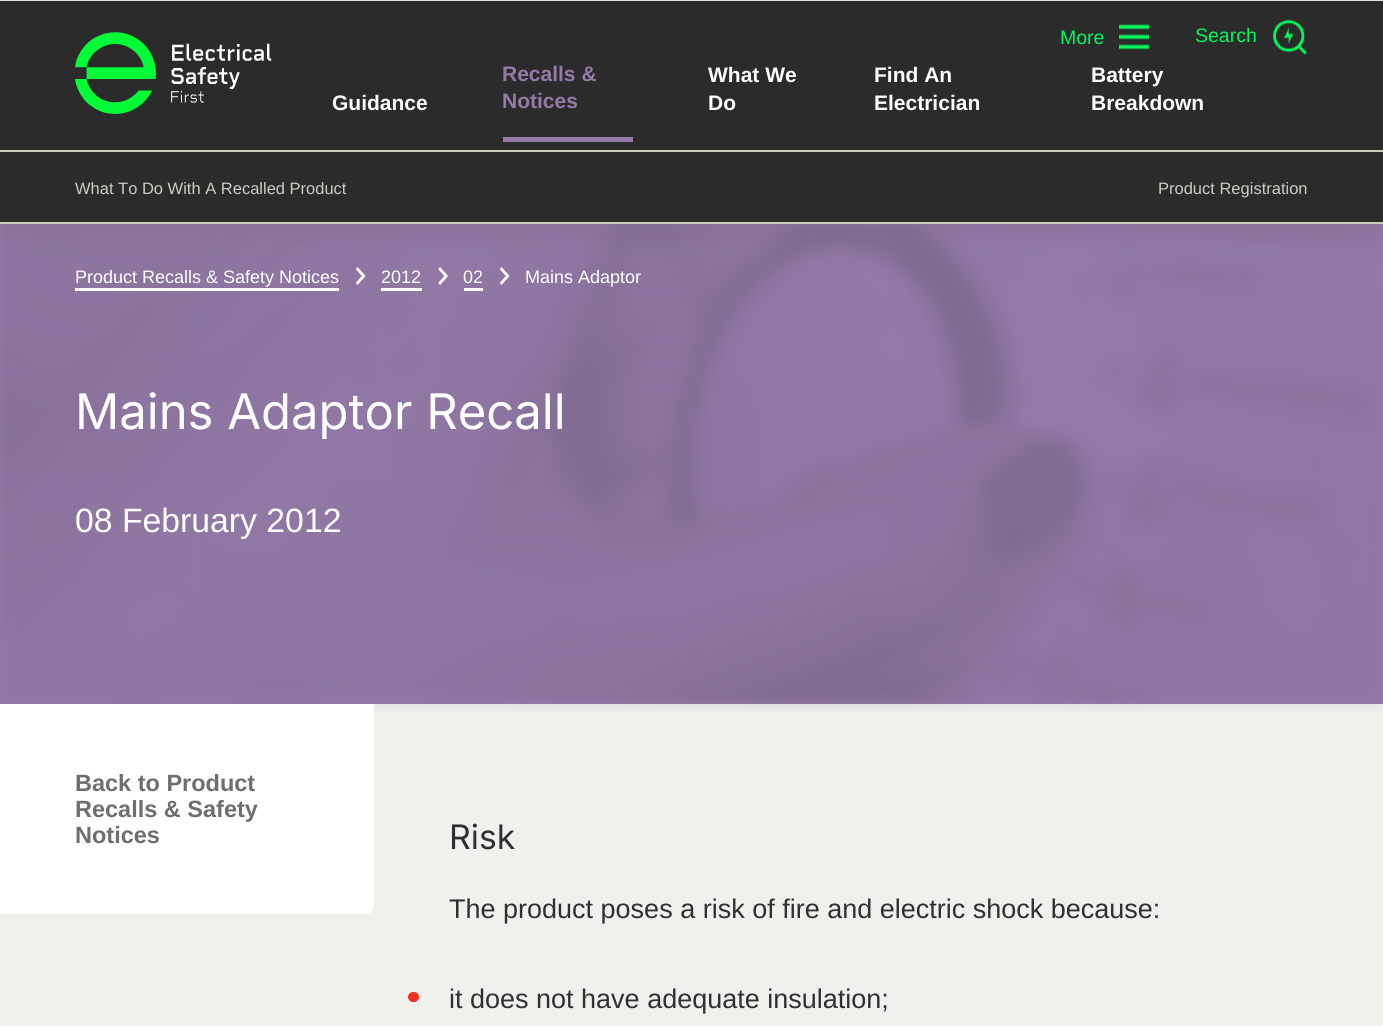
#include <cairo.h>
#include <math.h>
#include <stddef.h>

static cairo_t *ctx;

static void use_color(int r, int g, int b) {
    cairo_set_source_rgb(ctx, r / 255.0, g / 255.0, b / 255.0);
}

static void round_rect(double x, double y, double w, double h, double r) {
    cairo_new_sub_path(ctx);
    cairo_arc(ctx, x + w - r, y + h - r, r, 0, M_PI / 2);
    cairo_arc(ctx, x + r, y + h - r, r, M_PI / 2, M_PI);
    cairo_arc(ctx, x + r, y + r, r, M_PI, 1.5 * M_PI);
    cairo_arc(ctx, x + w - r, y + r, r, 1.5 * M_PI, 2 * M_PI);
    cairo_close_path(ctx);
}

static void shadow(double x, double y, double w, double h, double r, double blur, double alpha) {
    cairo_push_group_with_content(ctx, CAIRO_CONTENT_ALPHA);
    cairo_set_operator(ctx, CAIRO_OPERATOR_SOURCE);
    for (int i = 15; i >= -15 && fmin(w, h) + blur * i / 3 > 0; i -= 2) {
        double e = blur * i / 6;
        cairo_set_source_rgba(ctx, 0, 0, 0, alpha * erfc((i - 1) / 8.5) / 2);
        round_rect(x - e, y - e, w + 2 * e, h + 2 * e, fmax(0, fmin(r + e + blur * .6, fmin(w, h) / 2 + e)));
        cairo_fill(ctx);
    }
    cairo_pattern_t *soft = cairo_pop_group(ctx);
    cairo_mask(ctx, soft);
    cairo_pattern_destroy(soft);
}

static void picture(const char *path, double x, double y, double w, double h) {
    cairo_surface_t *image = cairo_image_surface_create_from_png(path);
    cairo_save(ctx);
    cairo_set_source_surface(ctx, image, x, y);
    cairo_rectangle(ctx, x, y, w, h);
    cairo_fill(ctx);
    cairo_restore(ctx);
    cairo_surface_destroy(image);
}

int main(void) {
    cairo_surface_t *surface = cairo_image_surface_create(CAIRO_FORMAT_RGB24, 1383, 1026);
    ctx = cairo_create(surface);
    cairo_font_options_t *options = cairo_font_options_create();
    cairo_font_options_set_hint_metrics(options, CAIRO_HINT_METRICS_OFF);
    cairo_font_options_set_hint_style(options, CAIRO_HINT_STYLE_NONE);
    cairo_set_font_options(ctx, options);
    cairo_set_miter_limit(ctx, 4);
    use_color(240, 240, 237);
    cairo_paint(ctx);
    use_color(148, 122, 168);
    cairo_rectangle(ctx, 0, 224, 1383, 480);
    cairo_fill(ctx);
    picture("img4.png", 0, 224, 1383, 488);
    picture("img5.png", 356, 267, 10, 18);
    picture("img6.png", 438, 267, 10, 18);
    picture("img7.png", 500, 267, 10, 18);
    use_color(0, 0, 0);
    shadow(0, 0, 1383, 224, 0, 15, 0.1);
    use_color(227, 228, 230);
    cairo_rectangle(ctx, 0, 0, 1383, 1);
    cairo_fill(ctx);
    use_color(43, 43, 43);
    cairo_rectangle(ctx, 0, 1, 1383, 221);
    cairo_fill(ctx);
    cairo_select_font_face(ctx, "Liberation Sans", CAIRO_FONT_SLANT_NORMAL, CAIRO_FONT_WEIGHT_NORMAL);
    cairo_set_font_size(ctx, 19.5);
    use_color(0, 248, 90);
    cairo_move_to(ctx, 1195, 42);
    cairo_show_text(ctx, "Search");
    picture("img1.png", 1273, 19, 34, 36);
    picture("img2.png", 75, 32, 197, 82);
    cairo_move_to(ctx, 1060, 44);
    cairo_show_text(ctx, "More");
    picture("img3.png", 1119, 24, 30, 26);
    cairo_select_font_face(ctx, "Liberation Sans", CAIRO_FONT_SLANT_NORMAL, CAIRO_FONT_WEIGHT_BOLD);
    cairo_set_font_size(ctx, 21);
    use_color(255, 255, 255);
    cairo_move_to(ctx, 332, 110);
    cairo_show_text(ctx, "Guidance");
    use_color(148, 122, 168);
    cairo_rectangle(ctx, 503, 137, 130, 5);
    cairo_fill(ctx);
    cairo_move_to(ctx, 502, 81);
    cairo_show_text(ctx, "Recalls &");
    cairo_move_to(ctx, 502, 108);
    cairo_show_text(ctx, "Notices");
    use_color(255, 255, 255);
    cairo_move_to(ctx, 708, 82);
    cairo_show_text(ctx, "What We");
    cairo_move_to(ctx, 708, 110);
    cairo_show_text(ctx, "Do");
    cairo_move_to(ctx, 874, 82);
    cairo_show_text(ctx, "Find An");
    cairo_move_to(ctx, 874, 110);
    cairo_show_text(ctx, "Electrician");
    cairo_move_to(ctx, 1091, 82);
    cairo_show_text(ctx, "Battery");
    cairo_move_to(ctx, 1091, 110);
    cairo_show_text(ctx, "Breakdown");
    use_color(206, 204, 194);
    cairo_rectangle(ctx, 0, 150, 1383, 2);
    cairo_fill(ctx);
    cairo_rectangle(ctx, 0, 222, 1383, 2);
    cairo_fill(ctx);
    cairo_select_font_face(ctx, "Liberation Sans", CAIRO_FONT_SLANT_NORMAL, CAIRO_FONT_WEIGHT_NORMAL);
    cairo_set_font_size(ctx, 16.5);
    cairo_move_to(ctx, 75, 194);
    cairo_show_text(ctx, "What To Do With A Recalled Product");
    cairo_move_to(ctx, 1158, 194);
    cairo_show_text(ctx, "Product Registration");
    cairo_set_font_size(ctx, 18);
    use_color(255, 255, 255);
    cairo_move_to(ctx, 75, 283);
    cairo_show_text(ctx, "Product Recalls & Safety Notices");
    cairo_rectangle(ctx, 75, 288, 264, 3);
    cairo_fill(ctx);
    cairo_move_to(ctx, 381, 283);
    cairo_show_text(ctx, "2012");
    cairo_rectangle(ctx, 381, 288, 41, 3);
    cairo_fill(ctx);
    cairo_move_to(ctx, 463, 283);
    cairo_show_text(ctx, "02");
    cairo_rectangle(ctx, 464, 288, 19, 3);
    cairo_fill(ctx);
    cairo_move_to(ctx, 525, 283);
    cairo_show_text(ctx, "Mains Adaptor");
    cairo_select_font_face(ctx, "Inter", CAIRO_FONT_SLANT_NORMAL, CAIRO_FONT_WEIGHT_NORMAL);
    cairo_set_font_size(ctx, 49);
    cairo_move_to(ctx, 75, 429);
    cairo_show_text(ctx, "Mains Adaptor Recall");
    cairo_select_font_face(ctx, "Liberation Sans", CAIRO_FONT_SLANT_NORMAL, CAIRO_FONT_WEIGHT_NORMAL);
    cairo_set_font_size(ctx, 33.75);
    cairo_move_to(ctx, 75, 532);
    cairo_show_text(ctx, "08 February 2012");
    cairo_new_path(ctx);
    cairo_move_to(ctx, 75, 704);
    cairo_line_to(ctx, 374, 704);
    cairo_line_to(ctx, 374, 906);
    cairo_curve_to(ctx, 374, 910.5, 370.5, 914, 366, 914);
    cairo_line_to(ctx, 75, 914);
    cairo_close_path(ctx);
    cairo_fill(ctx);
    cairo_rectangle(ctx, 0, 704, 75, 210);
    cairo_fill(ctx);
    cairo_select_font_face(ctx, "Liberation Sans", CAIRO_FONT_SLANT_NORMAL, CAIRO_FONT_WEIGHT_BOLD);
    cairo_set_font_size(ctx, 23.5);
    use_color(109, 110, 112);
    cairo_move_to(ctx, 75, 791);
    cairo_show_text(ctx, "Back to Product");
    cairo_move_to(ctx, 75, 817);
    cairo_show_text(ctx, "Recalls & Safety");
    cairo_move_to(ctx, 75, 843);
    cairo_show_text(ctx, "Notices");
    cairo_select_font_face(ctx, "Inter", CAIRO_FONT_SLANT_NORMAL, CAIRO_FONT_WEIGHT_NORMAL);
    cairo_set_font_size(ctx, 33.75);
    use_color(46, 48, 51);
    cairo_move_to(ctx, 449, 849);
    cairo_show_text(ctx, "Risk");
    cairo_select_font_face(ctx, "Liberation Sans", CAIRO_FONT_SLANT_NORMAL, CAIRO_FONT_WEIGHT_NORMAL);
    cairo_set_font_size(ctx, 27);
    cairo_move_to(ctx, 449, 918);
    cairo_show_text(ctx, "The product poses a risk of fire and electric shock because:");
    use_color(238, 49, 35);
    round_rect(408, 992, 11, 10, 5);
    cairo_fill(ctx);
    use_color(46, 48, 51);
    cairo_move_to(ctx, 449, 1008);
    cairo_show_text(ctx, "it does not have adequate insulation;");
    cairo_surface_write_to_png(surface, "result.png");
    cairo_font_options_destroy(options);
    cairo_destroy(ctx);
    cairo_surface_destroy(surface);
    return 0;
}
